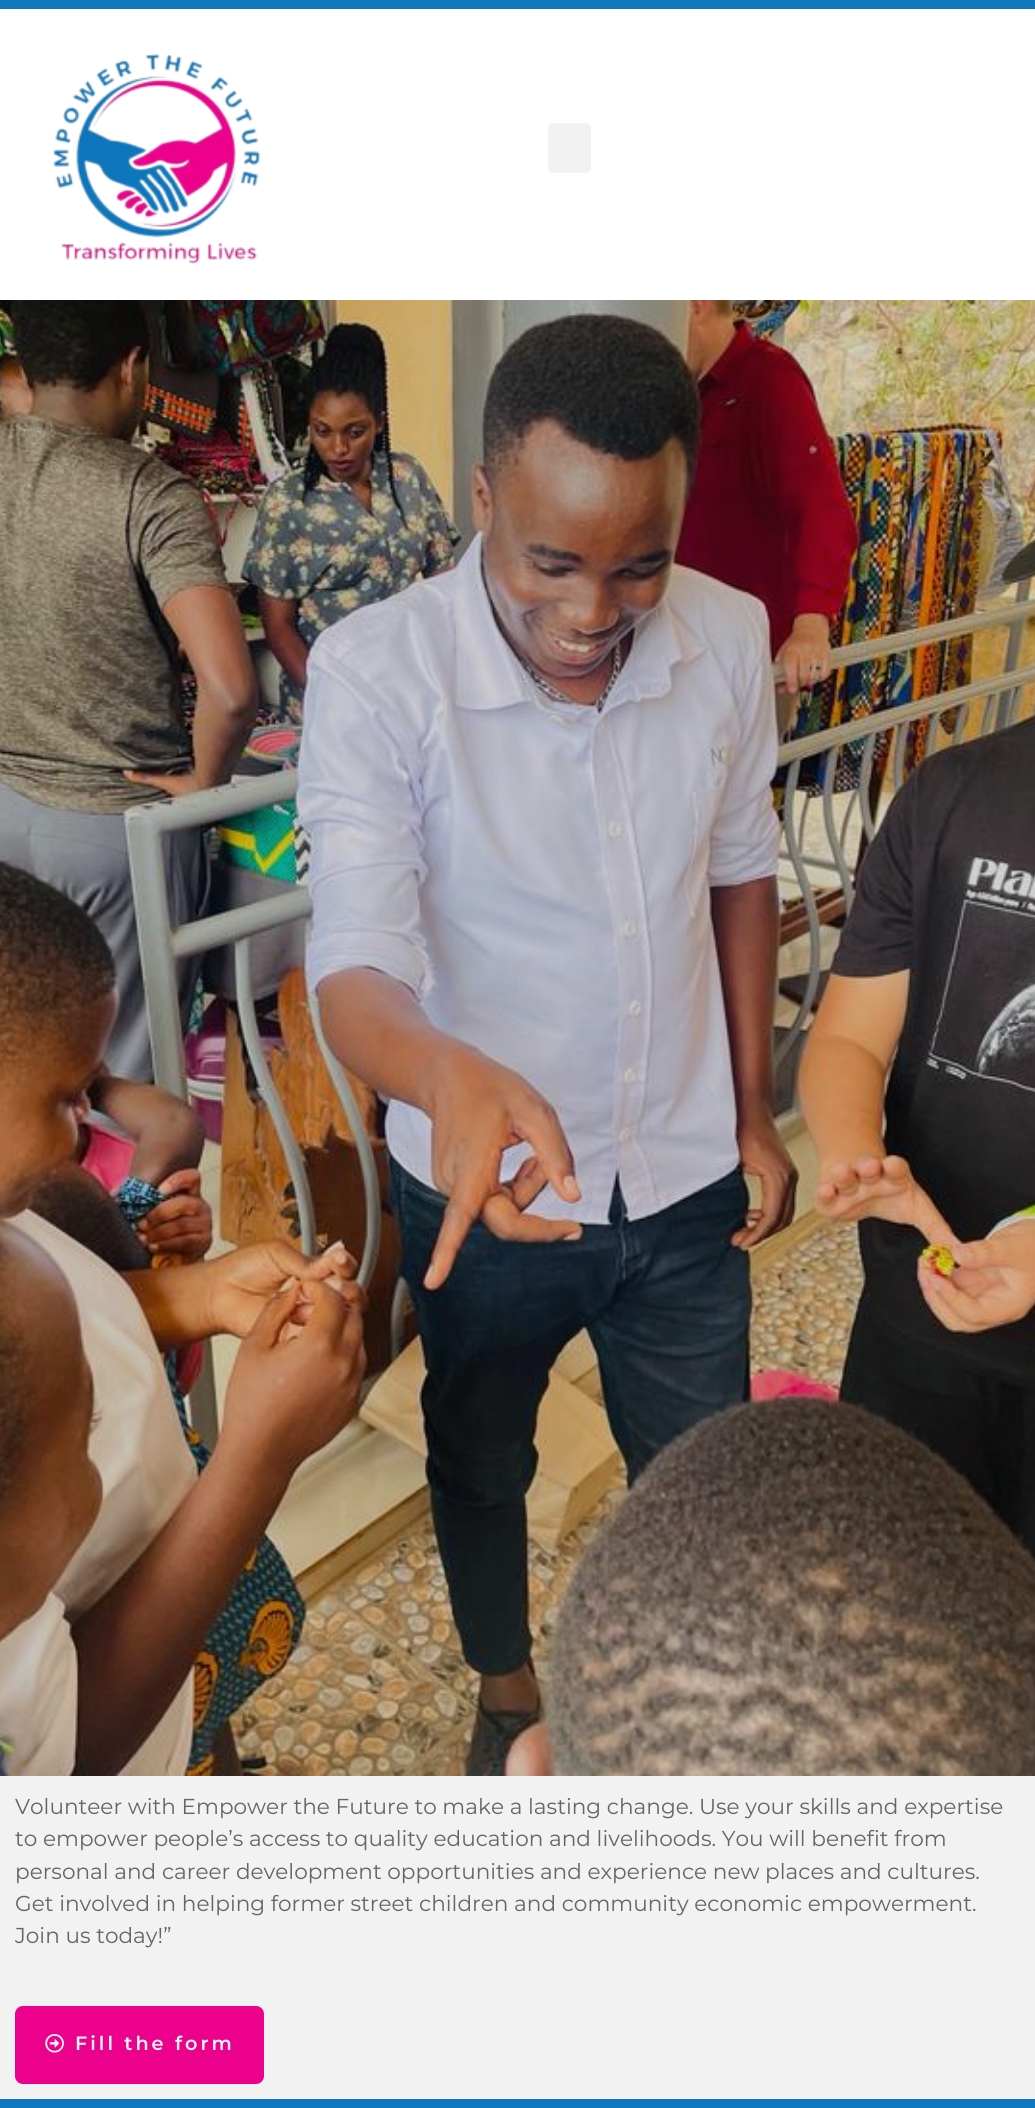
#include <cairo.h>
#include <math.h>
#include <stddef.h>

static cairo_t *ctx;

static void use_color(int r, int g, int b) {
    cairo_set_source_rgb(ctx, r / 255.0, g / 255.0, b / 255.0);
}

static void spaced_text(double x, double y, const char *s, double letter, double word) {
    cairo_move_to(ctx, x, y);
    while (*s) {
        char ch[5] = {0};
        int n = 0;
        do ch[n++] = *s++; while ((*s & 0xC0) == 0x80);
        cairo_show_text(ctx, ch);
        cairo_rel_move_to(ctx, letter + word * (*ch == ' '), 0);
    }
}

static void round_rect(double x, double y, double w, double h, double r) {
    cairo_new_sub_path(ctx);
    cairo_arc(ctx, x + w - r, y + h - r, r, 0, M_PI / 2);
    cairo_arc(ctx, x + r, y + h - r, r, M_PI / 2, M_PI);
    cairo_arc(ctx, x + r, y + r, r, M_PI, 1.5 * M_PI);
    cairo_arc(ctx, x + w - r, y + r, r, 1.5 * M_PI, 2 * M_PI);
    cairo_close_path(ctx);
}

static void picture(const char *path, double x, double y, double w, double h) {
    cairo_surface_t *image = cairo_image_surface_create_from_png(path);
    cairo_save(ctx);
    cairo_set_source_surface(ctx, image, x, y);
    cairo_rectangle(ctx, x, y, w, h);
    cairo_fill(ctx);
    cairo_restore(ctx);
    cairo_surface_destroy(image);
}

int main(void) {
    cairo_surface_t *surface = cairo_image_surface_create(CAIRO_FORMAT_RGB24, 1035, 2108);
    ctx = cairo_create(surface);
    cairo_font_options_t *options = cairo_font_options_create();
    cairo_font_options_set_hint_metrics(options, CAIRO_HINT_METRICS_OFF);
    cairo_font_options_set_hint_style(options, CAIRO_HINT_STYLE_NONE);
    cairo_set_font_options(ctx, options);
    cairo_set_miter_limit(ctx, 4);
    use_color(242, 242, 242);
    cairo_paint(ctx);
    use_color(14, 119, 189);
    cairo_rectangle(ctx, 0, 0, 1035, 9);
    cairo_fill(ctx);
    use_color(255, 255, 255);
    cairo_rectangle(ctx, 0, 9, 1035, 291);
    cairo_fill(ctx);
    picture("img1.png", 53, 53, 207, 212);
    use_color(242, 242, 242);
    round_rect(548, 123, 43, 50, 5);
    cairo_fill(ctx);
    picture("img2.png", 0, 300, 1035, 1476);
    cairo_select_font_face(ctx, "Montserrat", CAIRO_FONT_SLANT_NORMAL, CAIRO_FONT_WEIGHT_NORMAL);
    cairo_set_font_size(ctx, 21.6);
    use_color(101, 101, 101);
    cairo_move_to(ctx, 15, 1814);
    cairo_show_text(ctx, "Volunteer with Empower the Future to make a lasting change. Use your skills and expertise");
    cairo_move_to(ctx, 15, 1846);
    cairo_show_text(ctx, "to empower people’s access to quality education and livelihoods. You will benefit from");
    cairo_move_to(ctx, 15, 1879);
    cairo_show_text(ctx, "personal and career development opportunities and experience new places and cultures.");
    cairo_move_to(ctx, 15, 1911);
    cairo_show_text(ctx, "Get involved in helping former street children and community economic empowerment.");
    cairo_move_to(ctx, 15, 1943);
    cairo_show_text(ctx, "Join us today!”");
    use_color(235, 1, 139);
    round_rect(15, 2006, 249, 78, 8);
    cairo_fill(ctx);
    picture("img3.png", 45, 2034, 19, 19);
    cairo_select_font_face(ctx, "Montserrat SemiBold", CAIRO_FONT_SLANT_NORMAL, CAIRO_FONT_WEIGHT_NORMAL);
    cairo_set_font_size(ctx, 19.25);
    use_color(244, 244, 244);
    spaced_text(75, 2050, "Fill the form", 3, 0);
    use_color(14, 119, 189);
    cairo_rectangle(ctx, 0, 2099, 1035, 9);
    cairo_fill(ctx);
    cairo_surface_write_to_png(surface, "result.png");
    cairo_font_options_destroy(options);
    cairo_destroy(ctx);
    cairo_surface_destroy(surface);
    return 0;
}
